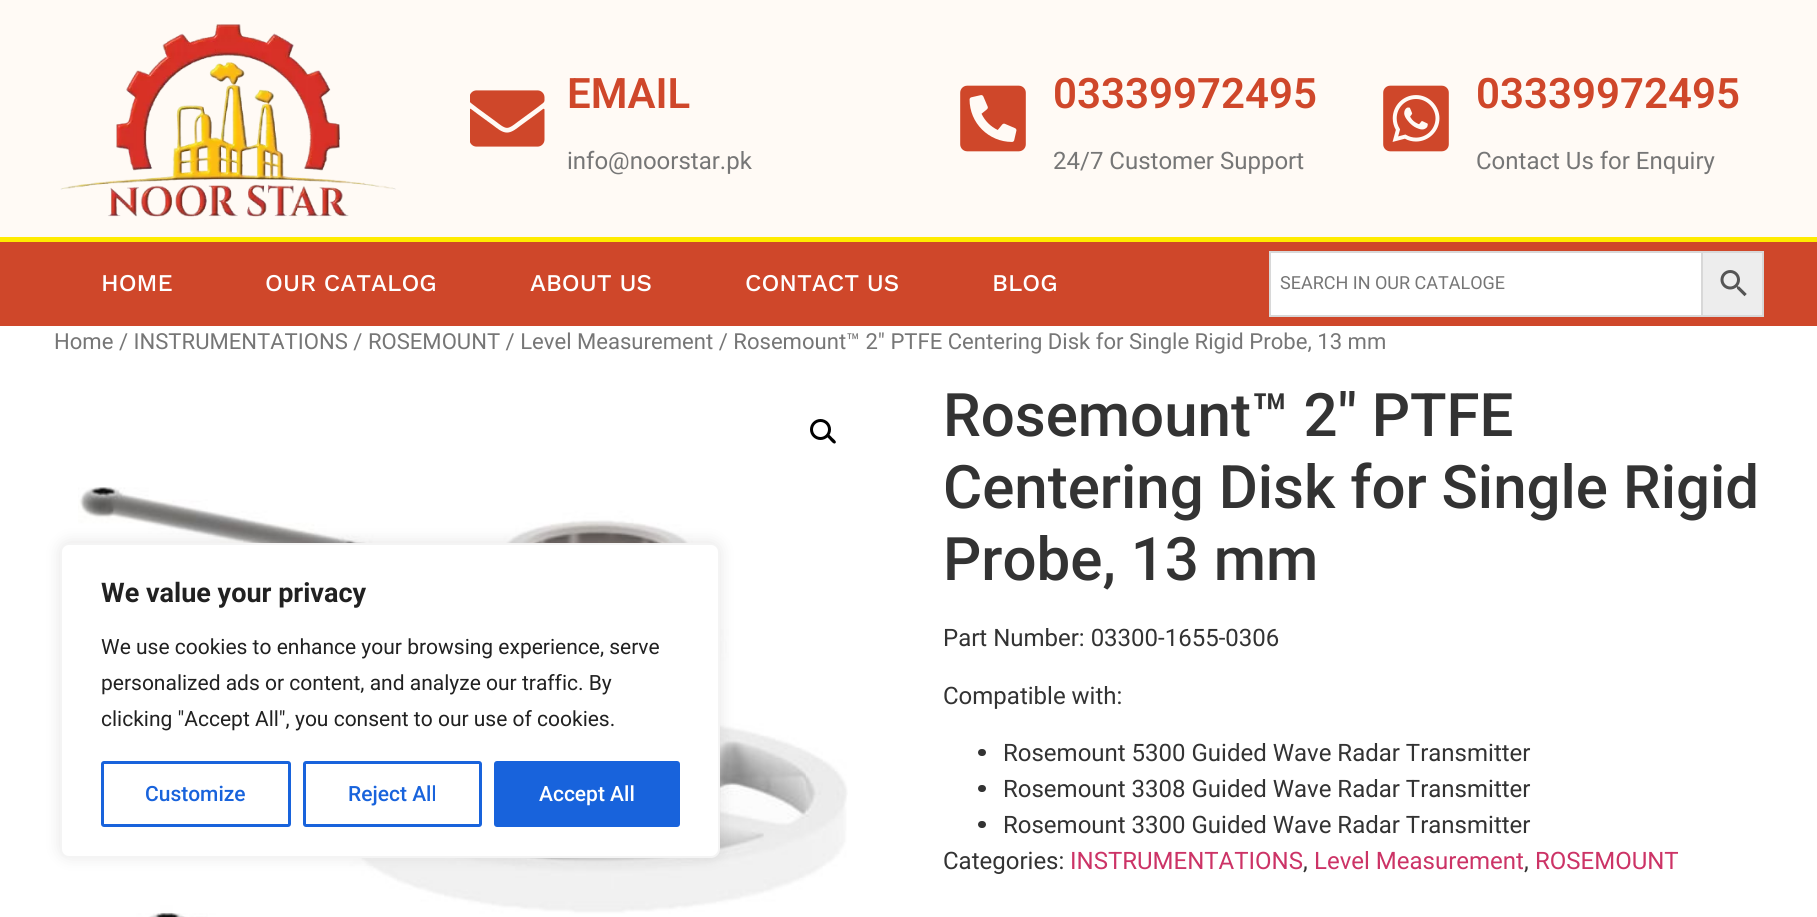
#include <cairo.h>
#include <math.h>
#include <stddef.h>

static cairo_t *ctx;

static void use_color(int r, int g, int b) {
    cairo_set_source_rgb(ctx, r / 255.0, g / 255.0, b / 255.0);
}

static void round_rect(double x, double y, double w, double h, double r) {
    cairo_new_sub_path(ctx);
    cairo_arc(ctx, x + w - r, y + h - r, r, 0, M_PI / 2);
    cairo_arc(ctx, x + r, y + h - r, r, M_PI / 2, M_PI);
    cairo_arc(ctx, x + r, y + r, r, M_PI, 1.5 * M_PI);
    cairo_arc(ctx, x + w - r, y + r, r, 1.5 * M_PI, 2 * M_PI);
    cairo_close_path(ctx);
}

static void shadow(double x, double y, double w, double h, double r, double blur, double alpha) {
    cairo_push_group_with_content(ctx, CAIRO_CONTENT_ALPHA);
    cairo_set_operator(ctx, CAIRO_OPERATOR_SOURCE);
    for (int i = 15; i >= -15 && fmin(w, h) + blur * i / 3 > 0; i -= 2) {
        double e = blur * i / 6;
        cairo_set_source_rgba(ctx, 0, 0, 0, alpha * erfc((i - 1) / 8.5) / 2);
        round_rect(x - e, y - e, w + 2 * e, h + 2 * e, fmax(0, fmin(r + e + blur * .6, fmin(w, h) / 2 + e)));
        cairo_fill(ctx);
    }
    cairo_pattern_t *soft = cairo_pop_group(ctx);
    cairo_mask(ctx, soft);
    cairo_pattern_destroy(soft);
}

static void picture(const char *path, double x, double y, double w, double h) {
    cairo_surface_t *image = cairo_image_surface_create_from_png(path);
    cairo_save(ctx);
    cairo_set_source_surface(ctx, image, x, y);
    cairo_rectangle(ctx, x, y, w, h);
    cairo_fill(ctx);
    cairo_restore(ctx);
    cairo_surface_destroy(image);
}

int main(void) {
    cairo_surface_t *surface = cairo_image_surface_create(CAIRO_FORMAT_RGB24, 1817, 917);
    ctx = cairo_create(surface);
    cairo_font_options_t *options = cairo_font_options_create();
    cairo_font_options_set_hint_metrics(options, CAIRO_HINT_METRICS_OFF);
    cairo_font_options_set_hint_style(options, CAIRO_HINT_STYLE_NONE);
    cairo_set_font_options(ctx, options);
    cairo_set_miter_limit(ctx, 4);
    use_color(255, 255, 255);
    cairo_paint(ctx);
    use_color(255, 250, 245);
    cairo_rectangle(ctx, 0, 0, 1817, 237);
    cairo_fill(ctx);
    picture("img1.png", 60, 24, 336, 193);
    picture("img2.png", 470, 90, 75, 57);
    cairo_select_font_face(ctx, "Roboto SemiBold", CAIRO_FONT_SLANT_NORMAL, CAIRO_FONT_WEIGHT_NORMAL);
    cairo_set_font_size(ctx, 42);
    use_color(207, 71, 42);
    cairo_move_to(ctx, 567, 108);
    cairo_show_text(ctx, "EMAIL");
    cairo_select_font_face(ctx, "Roboto", CAIRO_FONT_SLANT_NORMAL, CAIRO_FONT_WEIGHT_NORMAL);
    cairo_set_font_size(ctx, 24);
    use_color(118, 118, 118);
    cairo_move_to(ctx, 567, 169);
    cairo_show_text(ctx, "info@noorstar.pk");
    picture("img3.png", 960, 85, 66, 67);
    cairo_select_font_face(ctx, "Roboto SemiBold", CAIRO_FONT_SLANT_NORMAL, CAIRO_FONT_WEIGHT_NORMAL);
    cairo_set_font_size(ctx, 42);
    use_color(207, 71, 42);
    cairo_move_to(ctx, 1053, 108);
    cairo_show_text(ctx, "03339972495");
    cairo_select_font_face(ctx, "Roboto", CAIRO_FONT_SLANT_NORMAL, CAIRO_FONT_WEIGHT_NORMAL);
    cairo_set_font_size(ctx, 24);
    use_color(118, 118, 118);
    cairo_move_to(ctx, 1053, 169);
    cairo_show_text(ctx, "24/7 Customer Support");
    picture("img4.png", 1383, 85, 66, 67);
    cairo_select_font_face(ctx, "Roboto SemiBold", CAIRO_FONT_SLANT_NORMAL, CAIRO_FONT_WEIGHT_NORMAL);
    cairo_set_font_size(ctx, 42);
    use_color(207, 71, 42);
    cairo_move_to(ctx, 1476, 108);
    cairo_show_text(ctx, "03339972495");
    cairo_select_font_face(ctx, "Roboto", CAIRO_FONT_SLANT_NORMAL, CAIRO_FONT_WEIGHT_NORMAL);
    cairo_set_font_size(ctx, 24);
    use_color(118, 118, 118);
    cairo_move_to(ctx, 1476, 169);
    cairo_show_text(ctx, "Contact Us for Enquiry");
    use_color(207, 71, 42);
    cairo_rectangle(ctx, 0, 242, 1817, 84);
    cairo_fill(ctx);
    use_color(255, 235, 0);
    cairo_rectangle(ctx, 0, 237, 1817, 5);
    cairo_fill(ctx);
    cairo_select_font_face(ctx, "Work Sans Medium", CAIRO_FONT_SLANT_NORMAL, CAIRO_FONT_WEIGHT_NORMAL);
    use_color(255, 255, 255);
    cairo_move_to(ctx, 101, 291);
    cairo_show_text(ctx, "HOME");
    cairo_move_to(ctx, 265, 291);
    cairo_show_text(ctx, "OUR CATALOG");
    cairo_move_to(ctx, 530, 291);
    cairo_show_text(ctx, "ABOUT US");
    cairo_move_to(ctx, 745, 291);
    cairo_show_text(ctx, "CONTACT US");
    cairo_move_to(ctx, 992, 291);
    cairo_show_text(ctx, "BLOG");
    use_color(237, 237, 237);
    cairo_rectangle(ctx, 1702, 252, 61, 64);
    cairo_fill_preserve(ctx);
    use_color(216, 216, 216);
    cairo_stroke(ctx);
    use_color(255, 255, 255);
    cairo_rectangle(ctx, 1270, 252, 432, 64);
    cairo_fill_preserve(ctx);
    use_color(216, 216, 216);
    cairo_stroke(ctx);
    cairo_select_font_face(ctx, "Roboto", CAIRO_FONT_SLANT_NORMAL, CAIRO_FONT_WEIGHT_NORMAL);
    cairo_set_font_size(ctx, 18);
    use_color(118, 118, 118);
    cairo_move_to(ctx, 1280, 289);
    cairo_show_text(ctx, "SEARCH IN OUR CATALOGE");
    picture("img5.png", 1720, 270, 27, 27);
    cairo_set_font_size(ctx, 22.08);
    cairo_move_to(ctx, 54, 349);
    cairo_show_text(ctx, "Home / INSTRUMENTATIONS / ROSEMOUNT / Level Measurement / Rosemount™ 2″ PTFE Centering Disk for Single Rigid Probe, 13 mm");
    cairo_new_path(ctx);
    cairo_arc(ctx, 820.5, 429.5, 9, 0, 2 * M_PI);
    use_color(0, 0, 0);
    cairo_set_line_width(ctx, 3);
    cairo_stroke(ctx);
    cairo_new_path(ctx);
    cairo_move_to(ctx, 827, 434.5);
    cairo_curve_to(ctx, 828.5, 433, 831.5, 437, 832.5, 438);
    cairo_curve_to(ctx, 833.5, 439, 837, 441.5, 835.5, 443);
    cairo_curve_to(ctx, 834, 445, 831, 441, 830, 440);
    cairo_curve_to(ctx, 829.5, 439, 825.5, 436.5, 827, 434.5);
    cairo_close_path(ctx);
    cairo_fill(ctx);
    picture("img6.png", 78, 487, 770, 430);
    cairo_select_font_face(ctx, "Roboto Medium", CAIRO_FONT_SLANT_NORMAL, CAIRO_FONT_WEIGHT_NORMAL);
    cairo_set_font_size(ctx, 60);
    use_color(51, 51, 51);
    cairo_move_to(ctx, 943, 436);
    cairo_show_text(ctx, "Rosemount™ 2″ PTFE");
    cairo_move_to(ctx, 943, 508);
    cairo_show_text(ctx, "Centering Disk for Single Rigid");
    cairo_move_to(ctx, 943, 580);
    cairo_show_text(ctx, "Probe, 13 mm");
    cairo_select_font_face(ctx, "Roboto", CAIRO_FONT_SLANT_NORMAL, CAIRO_FONT_WEIGHT_NORMAL);
    cairo_set_font_size(ctx, 24);
    cairo_move_to(ctx, 943, 646);
    cairo_show_text(ctx, "Part Number: 03300-1655-0306");
    cairo_move_to(ctx, 943, 704);
    cairo_show_text(ctx, "Compatible with:");
    round_rect(978, 749, 8, 7, 3.5);
    cairo_fill(ctx);
    cairo_move_to(ctx, 1003, 761);
    cairo_show_text(ctx, "Rosemount 5300 Guided Wave Radar Transmitter");
    round_rect(978, 785, 8, 7, 3.5);
    cairo_fill(ctx);
    cairo_move_to(ctx, 1003, 797);
    cairo_show_text(ctx, "Rosemount 3308 Guided Wave Radar Transmitter");
    round_rect(978, 821, 8, 7, 3.5);
    cairo_fill(ctx);
    cairo_move_to(ctx, 1003, 833);
    cairo_show_text(ctx, "Rosemount 3300 Guided Wave Radar Transmitter");
    cairo_move_to(ctx, 943, 869);
    cairo_show_text(ctx, "Categories:");
    use_color(204, 51, 102);
    cairo_move_to(ctx, 1070, 869);
    cairo_show_text(ctx, "INSTRUMENTATIONS");
    use_color(51, 51, 51);
    cairo_move_to(ctx, 1303, 869);
    cairo_show_text(ctx, ",");
    use_color(204, 51, 102);
    cairo_move_to(ctx, 1314, 869);
    cairo_show_text(ctx, "Level Measurement");
    use_color(51, 51, 51);
    cairo_move_to(ctx, 1524, 869);
    cairo_show_text(ctx, ",");
    use_color(204, 51, 102);
    cairo_move_to(ctx, 1535, 869);
    cairo_show_text(ctx, "ROSEMOUNT");
    use_color(172, 171, 171);
    shadow(60, 542, 660, 315, 9, 7.5, 0.3);
    use_color(255, 255, 255);
    round_rect(61, 544, 658, 313, 8);
    cairo_fill_preserve(ctx);
    use_color(244, 244, 244);
    cairo_set_line_width(ctx, 2);
    cairo_stroke(ctx);
    cairo_select_font_face(ctx, "Roboto", CAIRO_FONT_SLANT_NORMAL, CAIRO_FONT_WEIGHT_BOLD);
    cairo_set_font_size(ctx, 27);
    use_color(33, 33, 33);
    cairo_move_to(ctx, 101, 602);
    cairo_show_text(ctx, "We value your privacy");
    cairo_select_font_face(ctx, "Roboto", CAIRO_FONT_SLANT_NORMAL, CAIRO_FONT_WEIGHT_NORMAL);
    cairo_set_font_size(ctx, 21);
    cairo_move_to(ctx, 101, 654);
    cairo_show_text(ctx, "We use cookies to enhance your browsing experience, serve");
    cairo_move_to(ctx, 101, 690);
    cairo_show_text(ctx, "personalized ads or content, and analyze our traffic. By");
    cairo_move_to(ctx, 101, 726);
    cairo_show_text(ctx, "clicking \"Accept All\", you consent to our use of cookies.");
    round_rect(102.5, 762.5, 187, 63, 1.5);
    use_color(24, 99, 220);
    cairo_set_line_width(ctx, 3);
    cairo_stroke(ctx);
    cairo_select_font_face(ctx, "Roboto Medium", CAIRO_FONT_SLANT_NORMAL, CAIRO_FONT_WEIGHT_NORMAL);
    cairo_move_to(ctx, 145, 801);
    cairo_show_text(ctx, "Customize");
    round_rect(304.5, 762.5, 176, 63, 1.5);
    cairo_stroke(ctx);
    cairo_move_to(ctx, 348, 801);
    cairo_show_text(ctx, "Reject All");
    round_rect(495.5, 762.5, 183, 63, 1.5);
    cairo_fill_preserve(ctx);
    cairo_stroke(ctx);
    use_color(255, 255, 255);
    cairo_move_to(ctx, 539, 801);
    cairo_show_text(ctx, "Accept All");
    cairo_surface_write_to_png(surface, "result.png");
    cairo_font_options_destroy(options);
    cairo_destroy(ctx);
    cairo_surface_destroy(surface);
    return 0;
}
